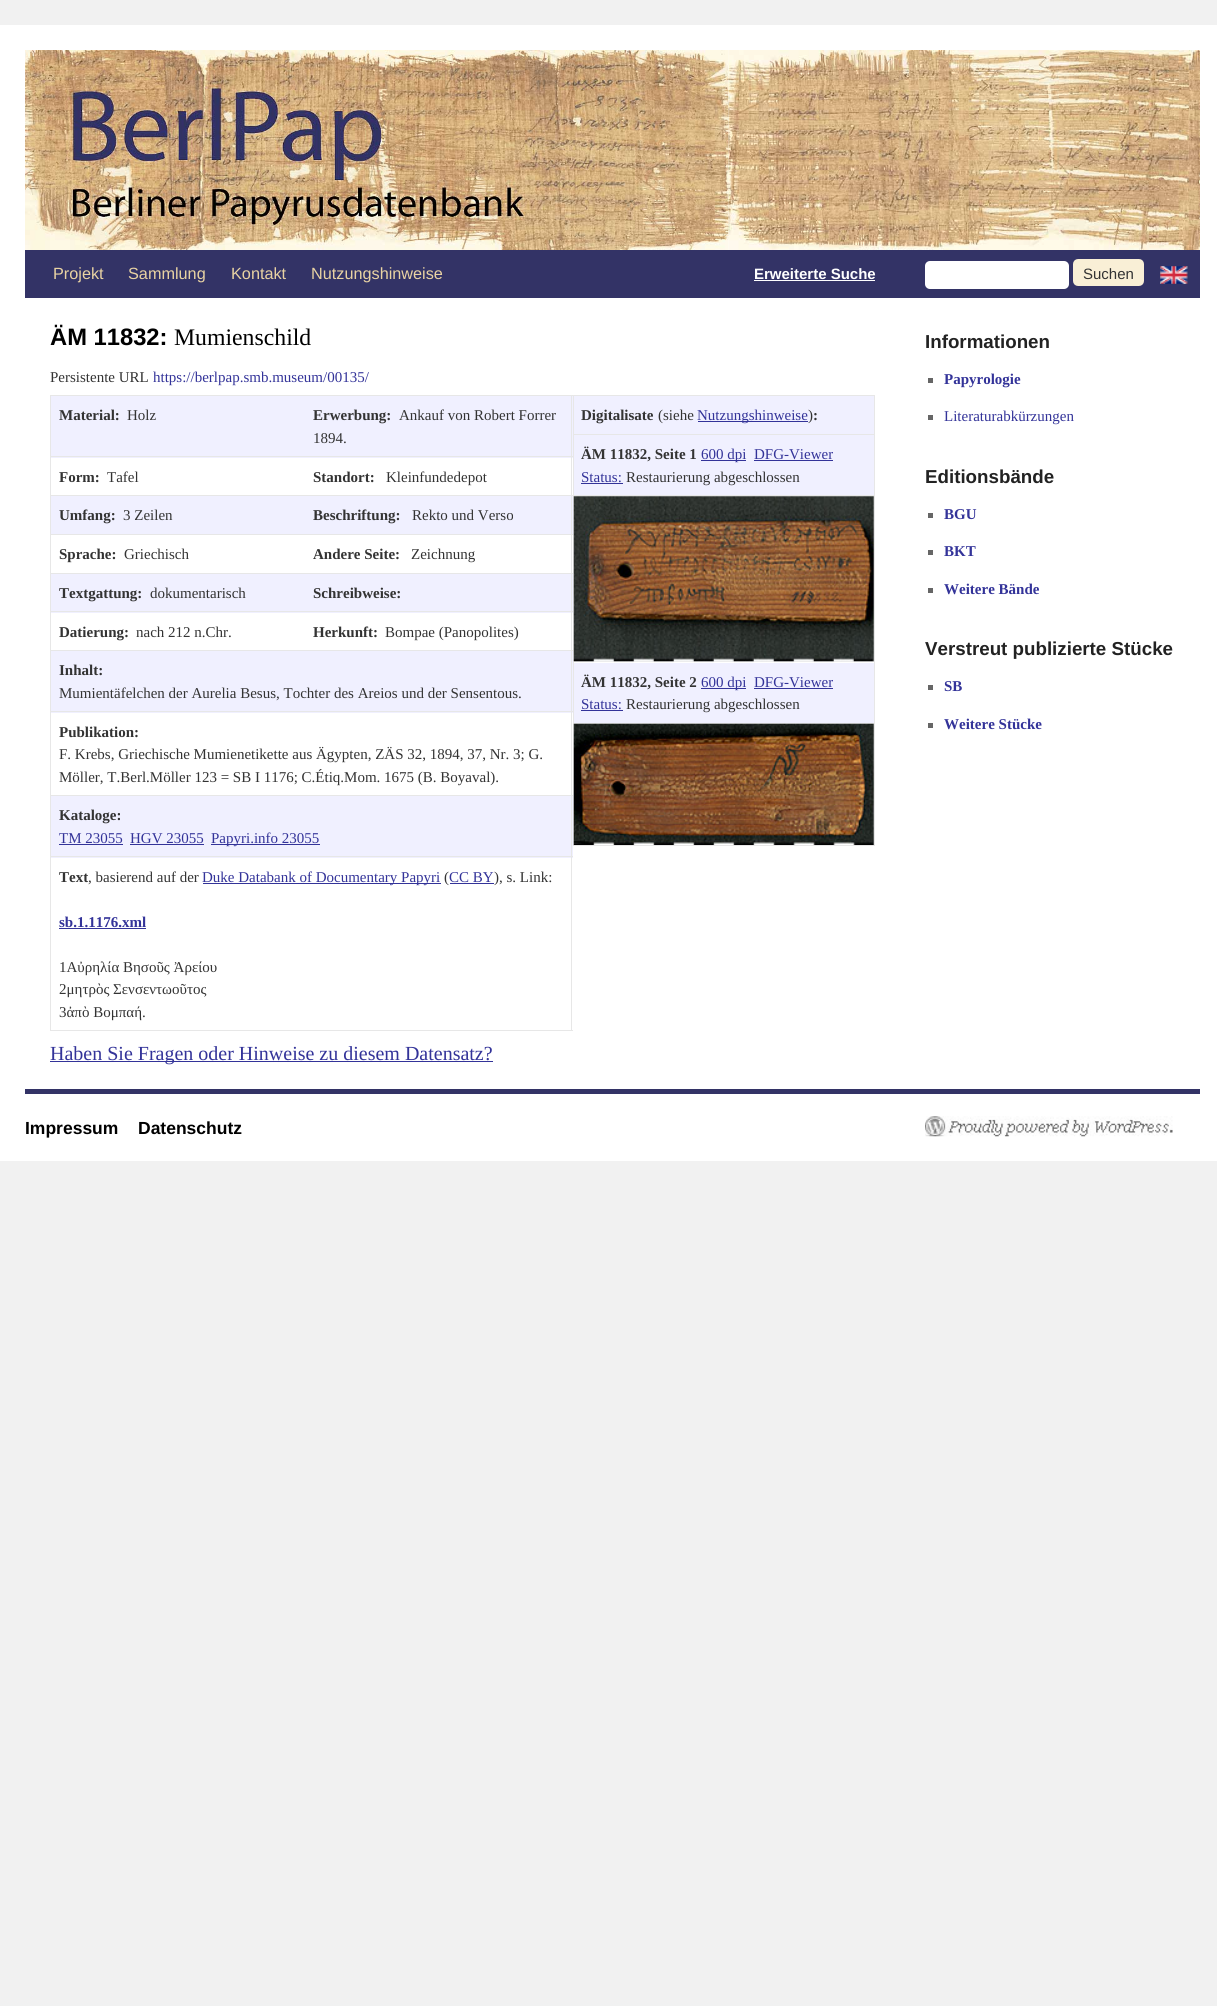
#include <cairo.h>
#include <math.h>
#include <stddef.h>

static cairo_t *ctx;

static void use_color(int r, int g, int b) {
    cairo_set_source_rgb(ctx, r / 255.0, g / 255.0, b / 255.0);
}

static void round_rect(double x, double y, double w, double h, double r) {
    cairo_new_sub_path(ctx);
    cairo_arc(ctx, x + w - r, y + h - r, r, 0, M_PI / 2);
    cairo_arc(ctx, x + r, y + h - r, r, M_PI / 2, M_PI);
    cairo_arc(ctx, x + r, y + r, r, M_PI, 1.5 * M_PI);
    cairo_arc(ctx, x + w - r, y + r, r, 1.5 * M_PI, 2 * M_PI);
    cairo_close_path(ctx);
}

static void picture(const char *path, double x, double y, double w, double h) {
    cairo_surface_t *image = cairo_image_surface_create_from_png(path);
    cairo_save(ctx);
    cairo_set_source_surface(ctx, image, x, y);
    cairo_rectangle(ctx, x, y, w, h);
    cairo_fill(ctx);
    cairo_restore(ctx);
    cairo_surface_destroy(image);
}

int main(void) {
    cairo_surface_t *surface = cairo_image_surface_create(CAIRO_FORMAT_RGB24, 1217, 2006);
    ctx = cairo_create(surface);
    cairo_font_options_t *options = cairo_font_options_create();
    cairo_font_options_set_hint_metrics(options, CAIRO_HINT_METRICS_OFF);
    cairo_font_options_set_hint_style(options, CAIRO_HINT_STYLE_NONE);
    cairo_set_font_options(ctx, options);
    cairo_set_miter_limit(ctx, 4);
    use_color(241, 241, 241);
    cairo_paint(ctx);
    use_color(255, 255, 255);
    cairo_rectangle(ctx, 0, 25, 1217, 1136);
    cairo_fill(ctx);
    picture("img1.png", 25, 50, 704, 200);
    picture("img2.png", 728, 50, 472, 200);
    use_color(51, 51, 102);
    cairo_rectangle(ctx, 25, 250, 1175, 48);
    cairo_fill(ctx);
    cairo_select_font_face(ctx, "Liberation Sans", CAIRO_FONT_SLANT_NORMAL, CAIRO_FONT_WEIGHT_NORMAL);
    cairo_set_font_size(ctx, 16.25);
    use_color(233, 211, 163);
    cairo_move_to(ctx, 53, 279);
    cairo_show_text(ctx, "Projekt");
    cairo_move_to(ctx, 128, 279);
    cairo_show_text(ctx, "Sammlung");
    cairo_move_to(ctx, 231, 279);
    cairo_show_text(ctx, "Kontakt");
    cairo_move_to(ctx, 311, 279);
    cairo_show_text(ctx, "Nutzungshinweise");
    cairo_select_font_face(ctx, "Liberation Sans", CAIRO_FONT_SLANT_NORMAL, CAIRO_FONT_WEIGHT_BOLD);
    cairo_set_font_size(ctx, 15);
    use_color(255, 255, 255);
    cairo_move_to(ctx, 754, 279);
    cairo_show_text(ctx, "Erweiterte Suche");
    cairo_rectangle(ctx, 754, 280, 121, 1);
    cairo_fill(ctx);
    round_rect(925, 261, 144, 28, 5);
    cairo_fill(ctx);
    use_color(249, 239, 214);
    round_rect(1074.5, 260.5, 68, 24, 3.5);
    cairo_fill_preserve(ctx);
    cairo_set_line_width(ctx, 3);
    cairo_stroke(ctx);
    cairo_select_font_face(ctx, "Liberation Sans", CAIRO_FONT_SLANT_NORMAL, CAIRO_FONT_WEIGHT_NORMAL);
    use_color(51, 51, 51);
    cairo_move_to(ctx, 1083, 279);
    cairo_show_text(ctx, "Suchen");
    picture("img3.png", 1160, 266, 28, 18);
    cairo_select_font_face(ctx, "Liberation Sans", CAIRO_FONT_SLANT_NORMAL, CAIRO_FONT_WEIGHT_BOLD);
    cairo_set_font_size(ctx, 23.75);
    use_color(0, 0, 0);
    cairo_move_to(ctx, 50, 345);
    cairo_show_text(ctx, "ÄM 11832:");
    cairo_select_font_face(ctx, "Liberation Serif", CAIRO_FONT_SLANT_NORMAL, CAIRO_FONT_WEIGHT_NORMAL);
    cairo_move_to(ctx, 174, 345);
    cairo_show_text(ctx, "Mumienschild");
    cairo_set_font_size(ctx, 15);
    use_color(51, 51, 51);
    cairo_move_to(ctx, 50, 382);
    cairo_show_text(ctx, "Persistente URL");
    use_color(51, 51, 153);
    cairo_move_to(ctx, 153, 382);
    cairo_show_text(ctx, "https://berlpap.smb.museum/00135/");
    use_color(231, 231, 231);
    cairo_rectangle(ctx, 50, 395, 825, 1);
    cairo_fill(ctx);
    use_color(240, 240, 255);
    cairo_rectangle(ctx, 51, 396, 522, 62);
    cairo_fill(ctx);
    cairo_rectangle(ctx, 51, 496, 522, 38);
    cairo_fill(ctx);
    cairo_rectangle(ctx, 51, 574, 522, 39);
    cairo_fill(ctx);
    cairo_rectangle(ctx, 51, 651, 522, 62);
    cairo_fill(ctx);
    cairo_rectangle(ctx, 51, 796, 522, 62);
    cairo_fill(ctx);
    use_color(231, 231, 231);
    cairo_rectangle(ctx, 571, 395, 1, 636);
    cairo_fill(ctx);
    cairo_rectangle(ctx, 50, 1030, 523, 1);
    cairo_fill(ctx);
    cairo_rectangle(ctx, 50, 395, 1, 636);
    cairo_fill(ctx);
    cairo_select_font_face(ctx, "Liberation Serif", CAIRO_FONT_SLANT_NORMAL, CAIRO_FONT_WEIGHT_BOLD);
    use_color(51, 51, 51);
    cairo_move_to(ctx, 59, 420);
    cairo_show_text(ctx, "Material:");
    cairo_select_font_face(ctx, "Liberation Serif", CAIRO_FONT_SLANT_NORMAL, CAIRO_FONT_WEIGHT_NORMAL);
    cairo_move_to(ctx, 127, 420);
    cairo_show_text(ctx, "Holz");
    cairo_select_font_face(ctx, "Liberation Serif", CAIRO_FONT_SLANT_NORMAL, CAIRO_FONT_WEIGHT_BOLD);
    cairo_move_to(ctx, 313, 420);
    cairo_show_text(ctx, "Erwerbung:");
    cairo_select_font_face(ctx, "Liberation Serif", CAIRO_FONT_SLANT_NORMAL, CAIRO_FONT_WEIGHT_NORMAL);
    cairo_move_to(ctx, 399, 420);
    cairo_show_text(ctx, "Ankauf von Robert Forrer");
    cairo_move_to(ctx, 313, 443);
    cairo_show_text(ctx, "1894.");
    cairo_select_font_face(ctx, "Liberation Serif", CAIRO_FONT_SLANT_NORMAL, CAIRO_FONT_WEIGHT_BOLD);
    cairo_move_to(ctx, 59, 482);
    cairo_show_text(ctx, "Form:");
    cairo_select_font_face(ctx, "Liberation Serif", CAIRO_FONT_SLANT_NORMAL, CAIRO_FONT_WEIGHT_NORMAL);
    cairo_move_to(ctx, 107, 482);
    cairo_show_text(ctx, "Tafel");
    use_color(231, 231, 231);
    cairo_rectangle(ctx, 50, 456, 523, 1);
    cairo_fill(ctx);
    cairo_select_font_face(ctx, "Liberation Serif", CAIRO_FONT_SLANT_NORMAL, CAIRO_FONT_WEIGHT_BOLD);
    use_color(51, 51, 51);
    cairo_move_to(ctx, 313, 482);
    cairo_show_text(ctx, "Standort:");
    cairo_select_font_face(ctx, "Liberation Serif", CAIRO_FONT_SLANT_NORMAL, CAIRO_FONT_WEIGHT_NORMAL);
    cairo_move_to(ctx, 386, 482);
    cairo_show_text(ctx, "Kleinfundedepot");
    cairo_select_font_face(ctx, "Liberation Serif", CAIRO_FONT_SLANT_NORMAL, CAIRO_FONT_WEIGHT_BOLD);
    cairo_move_to(ctx, 59, 520);
    cairo_show_text(ctx, "Umfang:");
    cairo_select_font_face(ctx, "Liberation Serif", CAIRO_FONT_SLANT_NORMAL, CAIRO_FONT_WEIGHT_NORMAL);
    cairo_move_to(ctx, 123, 520);
    cairo_show_text(ctx, "3 Zeilen");
    use_color(231, 231, 231);
    cairo_rectangle(ctx, 50, 495, 523, 1);
    cairo_fill(ctx);
    cairo_select_font_face(ctx, "Liberation Serif", CAIRO_FONT_SLANT_NORMAL, CAIRO_FONT_WEIGHT_BOLD);
    use_color(51, 51, 51);
    cairo_move_to(ctx, 313, 520);
    cairo_show_text(ctx, "Beschriftung:");
    cairo_select_font_face(ctx, "Liberation Serif", CAIRO_FONT_SLANT_NORMAL, CAIRO_FONT_WEIGHT_NORMAL);
    cairo_move_to(ctx, 412, 520);
    cairo_show_text(ctx, "Rekto und Verso");
    cairo_select_font_face(ctx, "Liberation Serif", CAIRO_FONT_SLANT_NORMAL, CAIRO_FONT_WEIGHT_BOLD);
    cairo_move_to(ctx, 59, 559);
    cairo_show_text(ctx, "Sprache:");
    cairo_select_font_face(ctx, "Liberation Serif", CAIRO_FONT_SLANT_NORMAL, CAIRO_FONT_WEIGHT_NORMAL);
    cairo_move_to(ctx, 124, 559);
    cairo_show_text(ctx, "Griechisch");
    use_color(231, 231, 231);
    cairo_rectangle(ctx, 50, 534, 523, 1);
    cairo_fill(ctx);
    cairo_select_font_face(ctx, "Liberation Serif", CAIRO_FONT_SLANT_NORMAL, CAIRO_FONT_WEIGHT_BOLD);
    use_color(51, 51, 51);
    cairo_move_to(ctx, 313, 559);
    cairo_show_text(ctx, "Andere Seite:");
    cairo_select_font_face(ctx, "Liberation Serif", CAIRO_FONT_SLANT_NORMAL, CAIRO_FONT_WEIGHT_NORMAL);
    cairo_move_to(ctx, 411, 559);
    cairo_show_text(ctx, "Zeichnung");
    cairo_select_font_face(ctx, "Liberation Serif", CAIRO_FONT_SLANT_NORMAL, CAIRO_FONT_WEIGHT_BOLD);
    cairo_move_to(ctx, 59, 598);
    cairo_show_text(ctx, "Textgattung:");
    cairo_select_font_face(ctx, "Liberation Serif", CAIRO_FONT_SLANT_NORMAL, CAIRO_FONT_WEIGHT_NORMAL);
    cairo_move_to(ctx, 150, 598);
    cairo_show_text(ctx, "dokumentarisch");
    use_color(231, 231, 231);
    cairo_rectangle(ctx, 50, 573, 523, 1);
    cairo_fill(ctx);
    cairo_select_font_face(ctx, "Liberation Serif", CAIRO_FONT_SLANT_NORMAL, CAIRO_FONT_WEIGHT_BOLD);
    use_color(51, 51, 51);
    cairo_move_to(ctx, 313, 598);
    cairo_show_text(ctx, "Schreibweise:");
    cairo_move_to(ctx, 59, 637);
    cairo_show_text(ctx, "Datierung:");
    cairo_select_font_face(ctx, "Liberation Serif", CAIRO_FONT_SLANT_NORMAL, CAIRO_FONT_WEIGHT_NORMAL);
    cairo_move_to(ctx, 136, 637);
    cairo_show_text(ctx, "nach 212 n.Chr.");
    use_color(231, 231, 231);
    cairo_rectangle(ctx, 50, 611, 523, 1);
    cairo_fill(ctx);
    cairo_select_font_face(ctx, "Liberation Serif", CAIRO_FONT_SLANT_NORMAL, CAIRO_FONT_WEIGHT_BOLD);
    use_color(51, 51, 51);
    cairo_move_to(ctx, 313, 637);
    cairo_show_text(ctx, "Herkunft:");
    cairo_select_font_face(ctx, "Liberation Serif", CAIRO_FONT_SLANT_NORMAL, CAIRO_FONT_WEIGHT_NORMAL);
    cairo_move_to(ctx, 385, 637);
    cairo_show_text(ctx, "Bompae (Panopolites)");
    use_color(231, 231, 231);
    cairo_rectangle(ctx, 50, 650, 523, 1);
    cairo_fill(ctx);
    cairo_select_font_face(ctx, "Liberation Serif", CAIRO_FONT_SLANT_NORMAL, CAIRO_FONT_WEIGHT_BOLD);
    use_color(51, 51, 51);
    cairo_move_to(ctx, 59, 675);
    cairo_show_text(ctx, "Inhalt:");
    cairo_select_font_face(ctx, "Liberation Serif", CAIRO_FONT_SLANT_NORMAL, CAIRO_FONT_WEIGHT_NORMAL);
    cairo_move_to(ctx, 59, 698);
    cairo_show_text(ctx, "Mumientäfelchen der Aurelia Besus, Tochter des Areios und der Sensentous.");
    use_color(231, 231, 231);
    cairo_rectangle(ctx, 50, 711, 523, 1);
    cairo_fill(ctx);
    cairo_select_font_face(ctx, "Liberation Serif", CAIRO_FONT_SLANT_NORMAL, CAIRO_FONT_WEIGHT_BOLD);
    use_color(51, 51, 51);
    cairo_move_to(ctx, 59, 737);
    cairo_show_text(ctx, "Publikation:");
    cairo_select_font_face(ctx, "Liberation Serif", CAIRO_FONT_SLANT_NORMAL, CAIRO_FONT_WEIGHT_NORMAL);
    cairo_move_to(ctx, 59, 759);
    cairo_show_text(ctx, "F. Krebs, Griechische Mumienetikette aus Ägypten, ZÄS 32, 1894, 37, Nr. 3; G.");
    cairo_move_to(ctx, 59, 782);
    cairo_show_text(ctx, "Möller, T.Berl.Möller 123 = SB I 1176; C.Étiq.Mom. 1675 (B. Boyaval).");
    use_color(231, 231, 231);
    cairo_rectangle(ctx, 50, 795, 523, 1);
    cairo_fill(ctx);
    cairo_select_font_face(ctx, "Liberation Serif", CAIRO_FONT_SLANT_NORMAL, CAIRO_FONT_WEIGHT_BOLD);
    use_color(51, 51, 51);
    cairo_move_to(ctx, 59, 820);
    cairo_show_text(ctx, "Kataloge:");
    cairo_select_font_face(ctx, "Liberation Serif", CAIRO_FONT_SLANT_NORMAL, CAIRO_FONT_WEIGHT_NORMAL);
    use_color(51, 51, 153);
    cairo_move_to(ctx, 59, 843);
    cairo_show_text(ctx, "TM 23055");
    cairo_rectangle(ctx, 59, 844, 64, 1);
    cairo_fill(ctx);
    cairo_move_to(ctx, 130, 843);
    cairo_show_text(ctx, "HGV 23055");
    cairo_rectangle(ctx, 130, 844, 74, 1);
    cairo_fill(ctx);
    cairo_rectangle(ctx, 211, 844, 109, 1);
    cairo_fill(ctx);
    cairo_move_to(ctx, 211, 843);
    cairo_show_text(ctx, "Papyri.info 23055");
    use_color(231, 231, 231);
    cairo_rectangle(ctx, 50, 856, 523, 1);
    cairo_fill(ctx);
    cairo_select_font_face(ctx, "Liberation Serif", CAIRO_FONT_SLANT_NORMAL, CAIRO_FONT_WEIGHT_BOLD);
    use_color(51, 51, 51);
    cairo_move_to(ctx, 59, 882);
    cairo_show_text(ctx, "Text");
    cairo_select_font_face(ctx, "Liberation Serif", CAIRO_FONT_SLANT_NORMAL, CAIRO_FONT_WEIGHT_NORMAL);
    cairo_move_to(ctx, 88, 882);
    cairo_show_text(ctx, ", basierend auf der");
    use_color(51, 51, 153);
    cairo_rectangle(ctx, 203, 883, 238, 1);
    cairo_fill(ctx);
    cairo_move_to(ctx, 202, 882);
    cairo_show_text(ctx, "Duke Databank of Documentary Papyri");
    use_color(51, 51, 51);
    cairo_move_to(ctx, 444, 882);
    cairo_show_text(ctx, "(");
    use_color(51, 51, 153);
    cairo_move_to(ctx, 449, 882);
    cairo_show_text(ctx, "CC BY");
    cairo_rectangle(ctx, 450, 883, 44, 1);
    cairo_fill(ctx);
    use_color(51, 51, 51);
    cairo_move_to(ctx, 494, 882);
    cairo_show_text(ctx, "), s. Link:");
    cairo_select_font_face(ctx, "Liberation Serif", CAIRO_FONT_SLANT_NORMAL, CAIRO_FONT_WEIGHT_BOLD);
    use_color(51, 51, 153);
    cairo_move_to(ctx, 59, 927);
    cairo_show_text(ctx, "sb.1.1176.xml");
    cairo_rectangle(ctx, 59, 928, 87, 1);
    cairo_fill(ctx);
    cairo_select_font_face(ctx, "Liberation Serif", CAIRO_FONT_SLANT_NORMAL, CAIRO_FONT_WEIGHT_NORMAL);
    use_color(51, 51, 51);
    cairo_move_to(ctx, 59, 972);
    cairo_show_text(ctx, "1Αὐρηλία Βησοῦς Ἀρείου");
    cairo_move_to(ctx, 59, 994);
    cairo_show_text(ctx, "2μητρὸς Σενσεντωοῦτος");
    cairo_move_to(ctx, 59, 1017);
    cairo_show_text(ctx, "3ἀπὸ Βομπαή.");
    use_color(231, 231, 231);
    cairo_rectangle(ctx, 874, 395, 1, 451);
    cairo_fill(ctx);
    cairo_rectangle(ctx, 573, 845, 302, 1);
    cairo_fill(ctx);
    cairo_rectangle(ctx, 573, 395, 1, 451);
    cairo_fill(ctx);
    use_color(240, 240, 255);
    cairo_rectangle(ctx, 574, 396, 300, 38);
    cairo_fill(ctx);
    cairo_select_font_face(ctx, "Liberation Serif", CAIRO_FONT_SLANT_NORMAL, CAIRO_FONT_WEIGHT_BOLD);
    use_color(51, 51, 51);
    cairo_move_to(ctx, 581, 420);
    cairo_show_text(ctx, "Digitalisate");
    cairo_select_font_face(ctx, "Liberation Serif", CAIRO_FONT_SLANT_NORMAL, CAIRO_FONT_WEIGHT_NORMAL);
    cairo_move_to(ctx, 658, 420);
    cairo_show_text(ctx, "(siehe");
    use_color(51, 51, 153);
    cairo_rectangle(ctx, 698, 421, 110, 1);
    cairo_fill(ctx);
    cairo_move_to(ctx, 697, 420);
    cairo_show_text(ctx, "Nutzungshinweise");
    use_color(51, 51, 51);
    cairo_move_to(ctx, 808, 420);
    cairo_show_text(ctx, ")");
    cairo_select_font_face(ctx, "Liberation Serif", CAIRO_FONT_SLANT_NORMAL, CAIRO_FONT_WEIGHT_BOLD);
    cairo_move_to(ctx, 813, 420);
    cairo_show_text(ctx, ":");
    use_color(240, 240, 255);
    cairo_rectangle(ctx, 574, 435, 300, 60);
    cairo_fill(ctx);
    use_color(231, 231, 231);
    cairo_rectangle(ctx, 573, 434, 302, 1);
    cairo_fill(ctx);
    use_color(51, 51, 51);
    cairo_move_to(ctx, 581, 459);
    cairo_show_text(ctx, "ÄM 11832, Seite 1");
    use_color(51, 51, 153);
    cairo_rectangle(ctx, 701, 460, 45, 1);
    cairo_fill(ctx);
    cairo_select_font_face(ctx, "Liberation Serif", CAIRO_FONT_SLANT_NORMAL, CAIRO_FONT_WEIGHT_NORMAL);
    cairo_move_to(ctx, 701, 459);
    cairo_show_text(ctx, "600 dpi");
    cairo_move_to(ctx, 754, 459);
    cairo_show_text(ctx, "DFG-Viewer");
    cairo_rectangle(ctx, 754, 460, 79, 1);
    cairo_fill(ctx);
    cairo_move_to(ctx, 581, 482);
    cairo_show_text(ctx, "Status:");
    cairo_rectangle(ctx, 581, 483, 42, 1);
    cairo_fill(ctx);
    use_color(51, 51, 51);
    cairo_move_to(ctx, 626, 482);
    cairo_show_text(ctx, "Restaurierung abgeschlossen");
    use_color(231, 231, 231);
    cairo_rectangle(ctx, 573, 495, 302, 1);
    cairo_fill(ctx);
    cairo_rectangle(ctx, 573, 661, 302, 1);
    cairo_fill(ctx);
    picture("img4.png", 573, 496, 301, 166);
    use_color(240, 240, 255);
    cairo_rectangle(ctx, 574, 663, 300, 60);
    cairo_fill(ctx);
    cairo_select_font_face(ctx, "Liberation Serif", CAIRO_FONT_SLANT_NORMAL, CAIRO_FONT_WEIGHT_BOLD);
    use_color(51, 51, 51);
    cairo_move_to(ctx, 581, 687);
    cairo_show_text(ctx, "ÄM 11832, Seite 2");
    use_color(51, 51, 153);
    cairo_rectangle(ctx, 701, 688, 45, 1);
    cairo_fill(ctx);
    cairo_select_font_face(ctx, "Liberation Serif", CAIRO_FONT_SLANT_NORMAL, CAIRO_FONT_WEIGHT_NORMAL);
    cairo_move_to(ctx, 701, 687);
    cairo_show_text(ctx, "600 dpi");
    cairo_move_to(ctx, 754, 687);
    cairo_show_text(ctx, "DFG-Viewer");
    cairo_rectangle(ctx, 754, 688, 79, 1);
    cairo_fill(ctx);
    cairo_move_to(ctx, 581, 709);
    cairo_show_text(ctx, "Status:");
    cairo_rectangle(ctx, 581, 710, 42, 1);
    cairo_fill(ctx);
    use_color(51, 51, 51);
    cairo_move_to(ctx, 626, 709);
    cairo_show_text(ctx, "Restaurierung abgeschlossen");
    use_color(231, 231, 231);
    cairo_rectangle(ctx, 573, 723, 302, 1);
    cairo_fill(ctx);
    picture("img5.png", 573, 723, 301, 122);
    use_color(51, 51, 153);
    cairo_rectangle(ctx, 50, 1061, 443, 1);
    cairo_fill(ctx);
    cairo_set_font_size(ctx, 20);
    cairo_move_to(ctx, 50, 1060);
    cairo_show_text(ctx, "Haben Sie Fragen oder Hinweise zu diesem Datensatz?");
    cairo_select_font_face(ctx, "Liberation Sans", CAIRO_FONT_SLANT_NORMAL, CAIRO_FONT_WEIGHT_BOLD);
    cairo_set_font_size(ctx, 18.75);
    use_color(34, 34, 34);
    cairo_move_to(ctx, 925, 348);
    cairo_show_text(ctx, "Informationen");
    use_color(102, 102, 102);
    cairo_rectangle(ctx, 928, 378, 5, 5);
    cairo_fill(ctx);
    cairo_select_font_face(ctx, "Liberation Serif", CAIRO_FONT_SLANT_NORMAL, CAIRO_FONT_WEIGHT_BOLD);
    cairo_set_font_size(ctx, 15);
    use_color(51, 51, 153);
    cairo_move_to(ctx, 944, 384);
    cairo_show_text(ctx, "Papyrologie");
    use_color(102, 102, 102);
    cairo_rectangle(ctx, 928, 415, 5, 5);
    cairo_fill(ctx);
    cairo_select_font_face(ctx, "Liberation Serif", CAIRO_FONT_SLANT_NORMAL, CAIRO_FONT_WEIGHT_NORMAL);
    use_color(51, 51, 153);
    cairo_move_to(ctx, 944, 421);
    cairo_show_text(ctx, "Literaturabkürzungen");
    cairo_select_font_face(ctx, "Liberation Sans", CAIRO_FONT_SLANT_NORMAL, CAIRO_FONT_WEIGHT_BOLD);
    cairo_set_font_size(ctx, 18.75);
    use_color(34, 34, 34);
    cairo_move_to(ctx, 925, 483);
    cairo_show_text(ctx, "Editionsbände");
    use_color(102, 102, 102);
    cairo_rectangle(ctx, 928, 513, 5, 5);
    cairo_fill(ctx);
    cairo_select_font_face(ctx, "Liberation Serif", CAIRO_FONT_SLANT_NORMAL, CAIRO_FONT_WEIGHT_BOLD);
    cairo_set_font_size(ctx, 15);
    use_color(51, 51, 153);
    cairo_move_to(ctx, 944, 519);
    cairo_show_text(ctx, "BGU");
    use_color(102, 102, 102);
    cairo_rectangle(ctx, 928, 550, 5, 5);
    cairo_fill(ctx);
    use_color(51, 51, 153);
    cairo_move_to(ctx, 944, 556);
    cairo_show_text(ctx, "BKT");
    use_color(102, 102, 102);
    cairo_rectangle(ctx, 928, 588, 5, 5);
    cairo_fill(ctx);
    use_color(51, 51, 153);
    cairo_move_to(ctx, 944, 594);
    cairo_show_text(ctx, "Weitere Bände");
    cairo_select_font_face(ctx, "Liberation Sans", CAIRO_FONT_SLANT_NORMAL, CAIRO_FONT_WEIGHT_BOLD);
    cairo_set_font_size(ctx, 18.75);
    use_color(34, 34, 34);
    cairo_move_to(ctx, 925, 655);
    cairo_show_text(ctx, "Verstreut publizierte Stücke");
    use_color(102, 102, 102);
    cairo_rectangle(ctx, 928, 685, 5, 5);
    cairo_fill(ctx);
    cairo_select_font_face(ctx, "Liberation Serif", CAIRO_FONT_SLANT_NORMAL, CAIRO_FONT_WEIGHT_BOLD);
    cairo_set_font_size(ctx, 15);
    use_color(51, 51, 153);
    cairo_move_to(ctx, 944, 691);
    cairo_show_text(ctx, "SB");
    use_color(102, 102, 102);
    cairo_rectangle(ctx, 928, 723, 5, 5);
    cairo_fill(ctx);
    use_color(51, 51, 153);
    cairo_move_to(ctx, 944, 729);
    cairo_show_text(ctx, "Weitere Stücke");
    use_color(51, 51, 102);
    cairo_rectangle(ctx, 25, 1089, 1175, 5);
    cairo_fill(ctx);
    cairo_select_font_face(ctx, "Liberation Sans", CAIRO_FONT_SLANT_NORMAL, CAIRO_FONT_WEIGHT_BOLD);
    cairo_set_font_size(ctx, 17.5);
    use_color(0, 0, 0);
    cairo_move_to(ctx, 25, 1134);
    cairo_show_text(ctx, "Impressum");
    cairo_move_to(ctx, 138, 1134);
    cairo_show_text(ctx, "Datenschutz");
    picture("img6.png", 925, 1116, 248, 21);
    cairo_surface_write_to_png(surface, "result.png");
    cairo_font_options_destroy(options);
    cairo_destroy(ctx);
    cairo_surface_destroy(surface);
    return 0;
}
